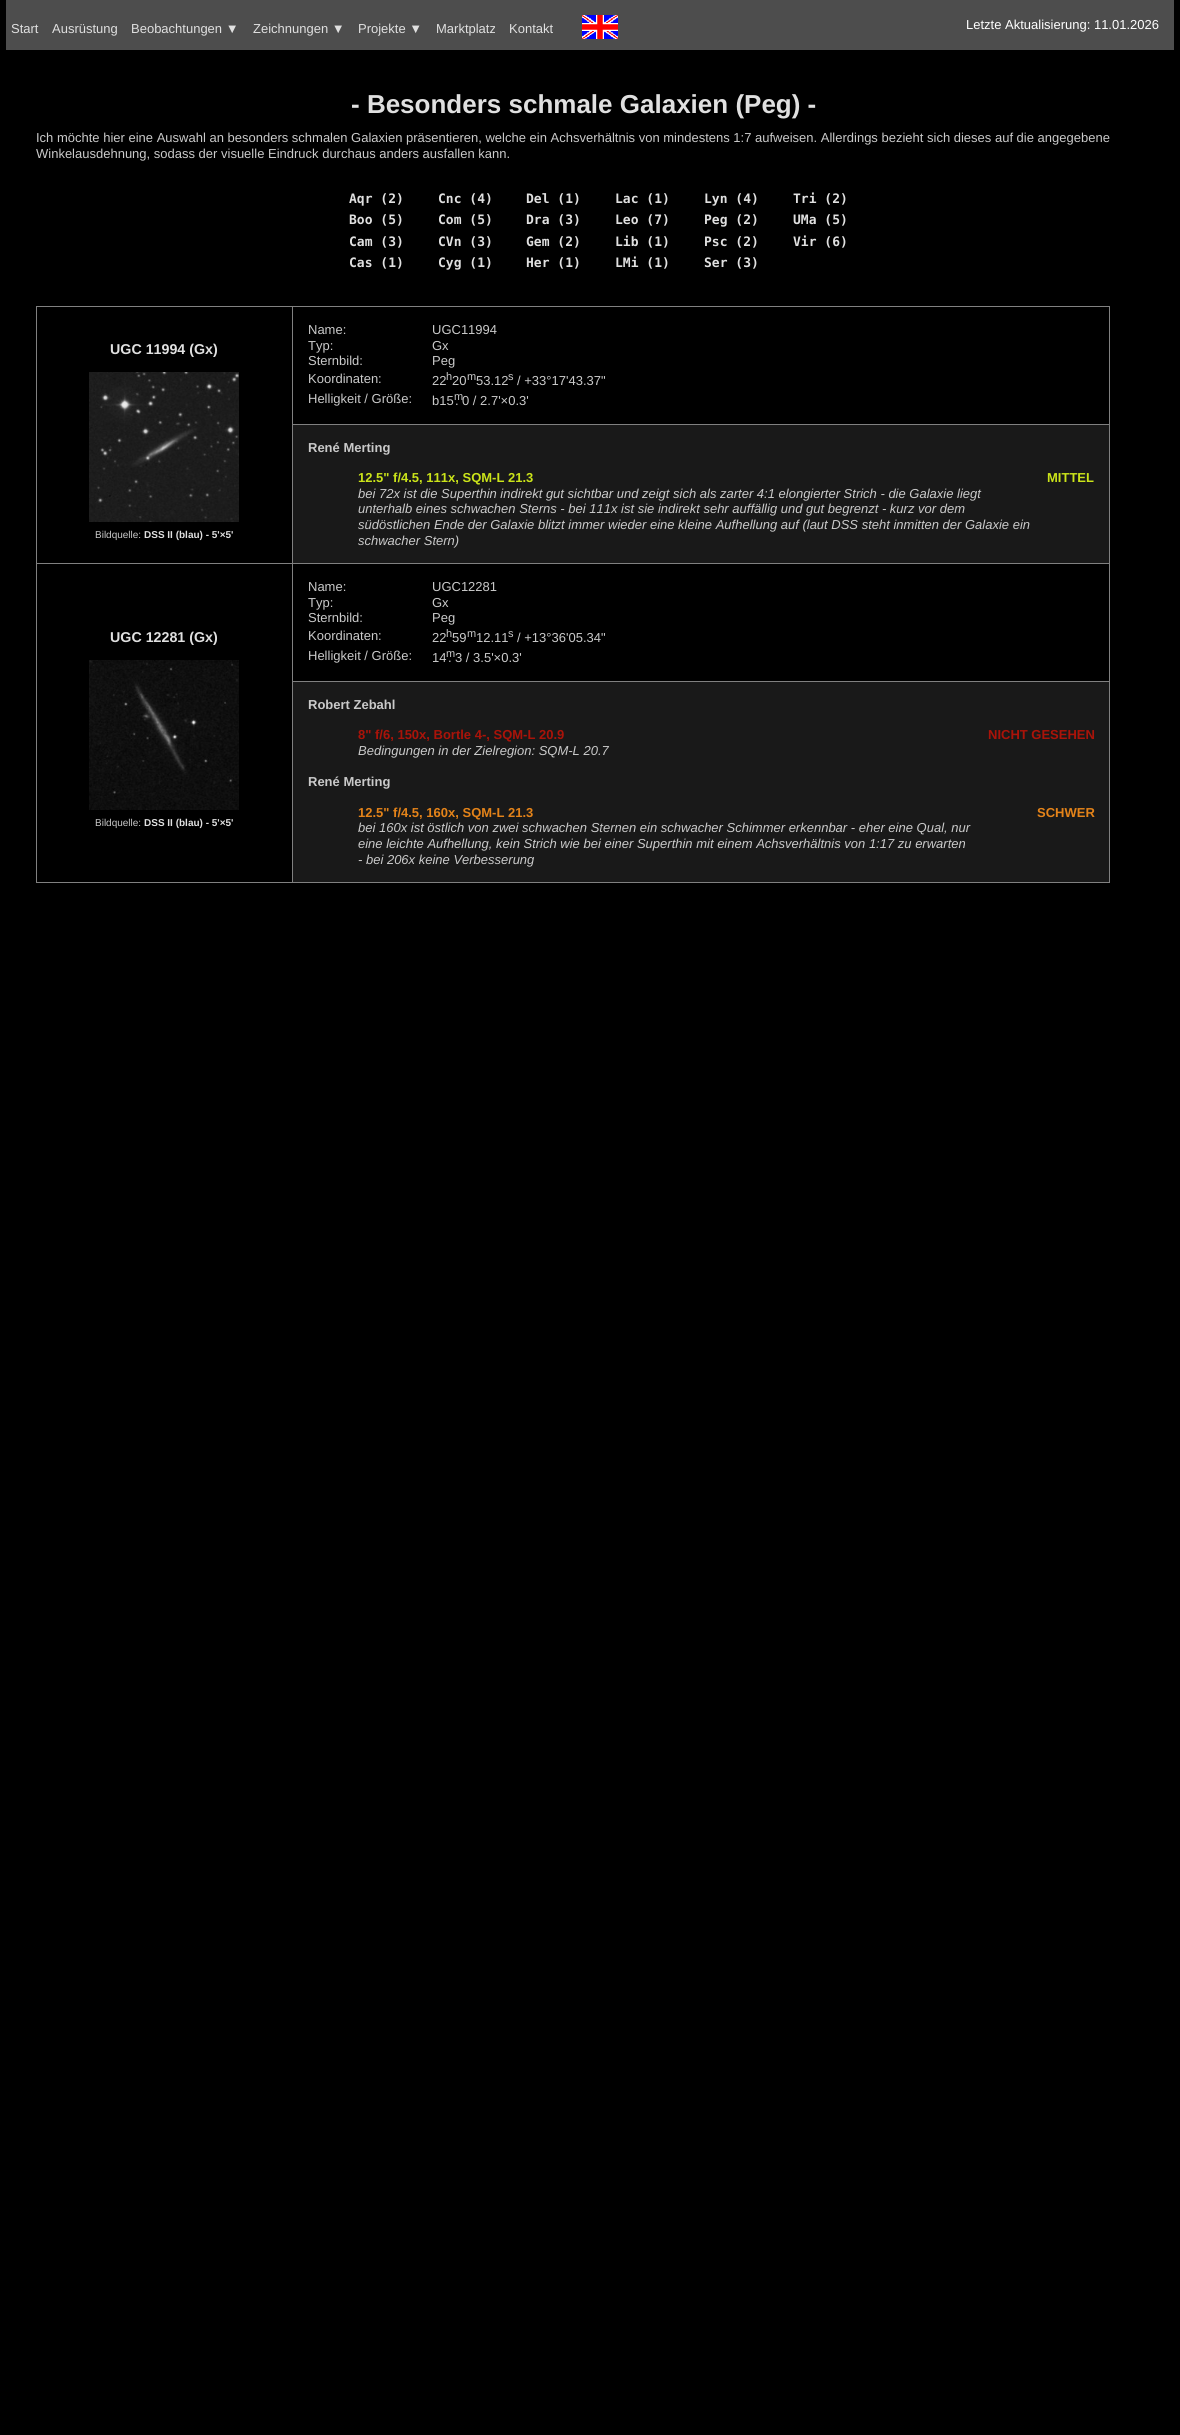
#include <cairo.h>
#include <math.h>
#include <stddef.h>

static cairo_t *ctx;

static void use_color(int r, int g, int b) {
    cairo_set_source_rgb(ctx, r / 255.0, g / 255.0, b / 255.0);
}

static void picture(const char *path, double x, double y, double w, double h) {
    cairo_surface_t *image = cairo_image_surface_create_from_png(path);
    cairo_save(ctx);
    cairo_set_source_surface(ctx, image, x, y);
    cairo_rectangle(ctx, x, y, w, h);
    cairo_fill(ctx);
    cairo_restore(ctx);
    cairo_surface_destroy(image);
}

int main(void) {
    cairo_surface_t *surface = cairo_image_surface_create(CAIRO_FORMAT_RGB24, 1180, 2435);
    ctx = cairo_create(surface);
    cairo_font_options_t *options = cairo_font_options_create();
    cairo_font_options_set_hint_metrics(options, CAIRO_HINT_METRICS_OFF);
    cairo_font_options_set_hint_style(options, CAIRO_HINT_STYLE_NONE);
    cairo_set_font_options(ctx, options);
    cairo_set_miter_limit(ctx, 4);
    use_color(0, 0, 0);
    cairo_paint(ctx);
    use_color(77, 77, 77);
    cairo_rectangle(ctx, 6, 0, 1168, 50);
    cairo_fill(ctx);
    cairo_select_font_face(ctx, "Liberation Sans", CAIRO_FONT_SLANT_NORMAL, CAIRO_FONT_WEIGHT_NORMAL);
    cairo_set_font_size(ctx, 13);
    use_color(224, 224, 224);
    cairo_move_to(ctx, 11, 33);
    cairo_show_text(ctx, "Start");
    cairo_move_to(ctx, 52, 33);
    cairo_show_text(ctx, "Ausrüstung");
    cairo_move_to(ctx, 131, 33);
    cairo_show_text(ctx, "Beobachtungen ▼");
    cairo_move_to(ctx, 253, 33);
    cairo_show_text(ctx, "Zeichnungen ▼");
    cairo_move_to(ctx, 358, 33);
    cairo_show_text(ctx, "Projekte ▼");
    cairo_move_to(ctx, 436, 33);
    cairo_show_text(ctx, "Marktplatz");
    cairo_move_to(ctx, 509, 33);
    cairo_show_text(ctx, "Kontakt");
    picture("img1.png", 582, 15, 36, 24);
    use_color(255, 255, 255);
    cairo_move_to(ctx, 966, 29);
    cairo_show_text(ctx, "Letzte Aktualisierung: 11.01.2026");
    cairo_select_font_face(ctx, "Liberation Sans", CAIRO_FONT_SLANT_NORMAL, CAIRO_FONT_WEIGHT_BOLD);
    cairo_set_font_size(ctx, 26);
    use_color(224, 224, 224);
    cairo_move_to(ctx, 351, 113);
    cairo_show_text(ctx, "- Besonders schmale Galaxien (Peg) -");
    cairo_select_font_face(ctx, "Liberation Sans", CAIRO_FONT_SLANT_NORMAL, CAIRO_FONT_WEIGHT_NORMAL);
    cairo_set_font_size(ctx, 13);
    use_color(202, 202, 202);
    cairo_move_to(ctx, 36, 142);
    cairo_show_text(ctx, "Ich möchte hier eine Auswahl an besonders schmalen Galaxien präsentieren, welche ein Achsverhältnis von mindestens 1:7 aufweisen. Allerdings bezieht sich dieses auf die angegebene");
    cairo_move_to(ctx, 36, 158);
    cairo_show_text(ctx, "Winkelausdehnung, sodass der visuelle Eindruck durchaus anders ausfallen kann.");
    cairo_select_font_face(ctx, "DejaVu Sans Mono", CAIRO_FONT_SLANT_NORMAL, CAIRO_FONT_WEIGHT_BOLD);
    use_color(224, 224, 224);
    cairo_move_to(ctx, 349, 203);
    cairo_show_text(ctx, "Aqr (2)");
    cairo_move_to(ctx, 438, 203);
    cairo_show_text(ctx, "Cnc (4)");
    cairo_move_to(ctx, 526, 203);
    cairo_show_text(ctx, "Del (1)");
    cairo_move_to(ctx, 615, 203);
    cairo_show_text(ctx, "Lac (1)");
    cairo_move_to(ctx, 704, 203);
    cairo_show_text(ctx, "Lyn (4)");
    cairo_move_to(ctx, 793, 203);
    cairo_show_text(ctx, "Tri (2)");
    cairo_move_to(ctx, 349, 224);
    cairo_show_text(ctx, "Boo (5)");
    cairo_move_to(ctx, 438, 224);
    cairo_show_text(ctx, "Com (5)");
    cairo_move_to(ctx, 526, 224);
    cairo_show_text(ctx, "Dra (3)");
    cairo_move_to(ctx, 615, 224);
    cairo_show_text(ctx, "Leo (7)");
    cairo_move_to(ctx, 704, 224);
    cairo_show_text(ctx, "Peg (2)");
    cairo_move_to(ctx, 793, 224);
    cairo_show_text(ctx, "UMa (5)");
    cairo_move_to(ctx, 349, 246);
    cairo_show_text(ctx, "Cam (3)");
    cairo_move_to(ctx, 438, 246);
    cairo_show_text(ctx, "CVn (3)");
    cairo_move_to(ctx, 526, 246);
    cairo_show_text(ctx, "Gem (2)");
    cairo_move_to(ctx, 615, 246);
    cairo_show_text(ctx, "Lib (1)");
    cairo_move_to(ctx, 704, 246);
    cairo_show_text(ctx, "Psc (2)");
    cairo_move_to(ctx, 793, 246);
    cairo_show_text(ctx, "Vir (6)");
    cairo_move_to(ctx, 349, 267);
    cairo_show_text(ctx, "Cas (1)");
    cairo_move_to(ctx, 438, 267);
    cairo_show_text(ctx, "Cyg (1)");
    cairo_move_to(ctx, 526, 267);
    cairo_show_text(ctx, "Her (1)");
    cairo_move_to(ctx, 615, 267);
    cairo_show_text(ctx, "LMi (1)");
    cairo_move_to(ctx, 704, 267);
    cairo_show_text(ctx, "Ser (3)");
    use_color(128, 128, 128);
    cairo_rectangle(ctx, 36, 306, 1074, 1);
    cairo_fill(ctx);
    cairo_rectangle(ctx, 1109, 306, 1, 577);
    cairo_fill(ctx);
    cairo_rectangle(ctx, 36, 882, 1074, 1);
    cairo_fill(ctx);
    cairo_rectangle(ctx, 36, 306, 1, 577);
    cairo_fill(ctx);
    cairo_select_font_face(ctx, "Liberation Sans", CAIRO_FONT_SLANT_NORMAL, CAIRO_FONT_WEIGHT_BOLD);
    cairo_set_font_size(ctx, 14.25);
    use_color(224, 224, 224);
    cairo_move_to(ctx, 110, 354);
    cairo_show_text(ctx, "UGC 11994 (Gx)");
    picture("img2.png", 89, 372, 150, 150);
    cairo_select_font_face(ctx, "Liberation Sans", CAIRO_FONT_SLANT_NORMAL, CAIRO_FONT_WEIGHT_NORMAL);
    cairo_set_font_size(ctx, 10);
    use_color(202, 202, 202);
    cairo_move_to(ctx, 95, 538);
    cairo_show_text(ctx, "Bildquelle:");
    cairo_select_font_face(ctx, "Liberation Sans", CAIRO_FONT_SLANT_NORMAL, CAIRO_FONT_WEIGHT_BOLD);
    use_color(224, 224, 224);
    cairo_move_to(ctx, 144, 538);
    cairo_show_text(ctx, "DSS II (blau) - 5'×5'");
    cairo_select_font_face(ctx, "Liberation Sans", CAIRO_FONT_SLANT_NORMAL, CAIRO_FONT_WEIGHT_NORMAL);
    cairo_set_font_size(ctx, 13);
    use_color(202, 202, 202);
    cairo_move_to(ctx, 308, 334);
    cairo_show_text(ctx, "Name:");
    cairo_move_to(ctx, 432, 334);
    cairo_show_text(ctx, "UGC11994");
    cairo_move_to(ctx, 308, 350);
    cairo_show_text(ctx, "Typ:");
    cairo_move_to(ctx, 432, 350);
    cairo_show_text(ctx, "Gx");
    cairo_move_to(ctx, 308, 365);
    cairo_show_text(ctx, "Sternbild:");
    cairo_move_to(ctx, 432, 365);
    cairo_show_text(ctx, "Peg");
    cairo_move_to(ctx, 308, 383);
    cairo_show_text(ctx, "Koordinaten:");
    cairo_move_to(ctx, 432, 385);
    cairo_show_text(ctx, "22");
    cairo_set_font_size(ctx, 11);
    cairo_move_to(ctx, 446, 380);
    cairo_show_text(ctx, "h");
    cairo_set_font_size(ctx, 13);
    cairo_move_to(ctx, 452, 385);
    cairo_show_text(ctx, "20");
    cairo_set_font_size(ctx, 11);
    cairo_move_to(ctx, 467, 380);
    cairo_show_text(ctx, "m");
    cairo_set_font_size(ctx, 13);
    cairo_move_to(ctx, 476, 385);
    cairo_show_text(ctx, "53.12");
    cairo_set_font_size(ctx, 11);
    cairo_move_to(ctx, 508, 380);
    cairo_show_text(ctx, "s");
    cairo_set_font_size(ctx, 13);
    cairo_move_to(ctx, 517, 385);
    cairo_show_text(ctx, "/ +33°17'43.37\"");
    cairo_move_to(ctx, 308, 403);
    cairo_show_text(ctx, "Helligkeit / Größe:");
    cairo_move_to(ctx, 432, 405);
    cairo_show_text(ctx, "b15");
    cairo_set_font_size(ctx, 11);
    cairo_move_to(ctx, 454, 400);
    cairo_show_text(ctx, "m");
    cairo_set_font_size(ctx, 13);
    cairo_move_to(ctx, 462, 405);
    cairo_show_text(ctx, "0 / 2.7'×0.3'");
    cairo_move_to(ctx, 455, 405);
    cairo_show_text(ctx, ".");
    use_color(25, 25, 25);
    cairo_rectangle(ctx, 293, 425, 816, 138);
    cairo_fill(ctx);
    use_color(128, 128, 128);
    cairo_rectangle(ctx, 292, 424, 818, 1);
    cairo_fill(ctx);
    cairo_rectangle(ctx, 292, 563, 818, 1);
    cairo_fill(ctx);
    cairo_rectangle(ctx, 292, 681, 818, 1);
    cairo_fill(ctx);
    cairo_rectangle(ctx, 292, 681, 1, 202);
    cairo_fill(ctx);
    cairo_rectangle(ctx, 292, 563, 1, 119);
    cairo_fill(ctx);
    cairo_rectangle(ctx, 36, 563, 257, 1);
    cairo_fill(ctx);
    cairo_rectangle(ctx, 292, 306, 1, 258);
    cairo_fill(ctx);
    cairo_select_font_face(ctx, "Liberation Sans", CAIRO_FONT_SLANT_NORMAL, CAIRO_FONT_WEIGHT_BOLD);
    use_color(202, 202, 202);
    cairo_move_to(ctx, 308, 452);
    cairo_show_text(ctx, "René Merting");
    use_color(203, 228, 25);
    cairo_move_to(ctx, 358, 482);
    cairo_show_text(ctx, "12.5\" f/4.5, 111x, SQM-L 21.3");
    cairo_select_font_face(ctx, "Liberation Sans", CAIRO_FONT_SLANT_ITALIC, CAIRO_FONT_WEIGHT_NORMAL);
    use_color(202, 202, 202);
    cairo_move_to(ctx, 358, 498);
    cairo_show_text(ctx, "bei 72x ist die Superthin indirekt gut sichtbar und zeigt sich als zarter 4:1 elongierter Strich - die Galaxie liegt");
    cairo_move_to(ctx, 358, 513);
    cairo_show_text(ctx, "unterhalb eines schwachen Sterns - bei 111x ist sie indirekt sehr auffällig und gut begrenzt - kurz vor dem");
    cairo_move_to(ctx, 358, 529);
    cairo_show_text(ctx, "südöstlichen Ende der Galaxie blitzt immer wieder eine kleine Aufhellung auf (laut DSS steht inmitten der Galaxie ein");
    cairo_move_to(ctx, 358, 545);
    cairo_show_text(ctx, "schwacher Stern)");
    cairo_select_font_face(ctx, "Liberation Sans", CAIRO_FONT_SLANT_NORMAL, CAIRO_FONT_WEIGHT_BOLD);
    use_color(203, 228, 25);
    cairo_move_to(ctx, 1047, 482);
    cairo_show_text(ctx, "MITTEL");
    cairo_select_font_face(ctx, "Liberation Sans", CAIRO_FONT_SLANT_NORMAL, CAIRO_FONT_WEIGHT_NORMAL);
    use_color(202, 202, 202);
    cairo_move_to(ctx, 308, 591);
    cairo_show_text(ctx, "Name:");
    cairo_move_to(ctx, 432, 591);
    cairo_show_text(ctx, "UGC12281");
    cairo_move_to(ctx, 308, 607);
    cairo_show_text(ctx, "Typ:");
    cairo_move_to(ctx, 432, 607);
    cairo_show_text(ctx, "Gx");
    cairo_move_to(ctx, 308, 622);
    cairo_show_text(ctx, "Sternbild:");
    cairo_move_to(ctx, 432, 622);
    cairo_show_text(ctx, "Peg");
    cairo_move_to(ctx, 308, 640);
    cairo_show_text(ctx, "Koordinaten:");
    cairo_move_to(ctx, 432, 642);
    cairo_show_text(ctx, "22");
    cairo_set_font_size(ctx, 11);
    cairo_move_to(ctx, 446, 637);
    cairo_show_text(ctx, "h");
    cairo_set_font_size(ctx, 13);
    cairo_move_to(ctx, 452, 642);
    cairo_show_text(ctx, "59");
    cairo_set_font_size(ctx, 11);
    cairo_move_to(ctx, 467, 637);
    cairo_show_text(ctx, "m");
    cairo_set_font_size(ctx, 13);
    cairo_move_to(ctx, 476, 642);
    cairo_show_text(ctx, "12.11");
    cairo_set_font_size(ctx, 11);
    cairo_move_to(ctx, 508, 637);
    cairo_show_text(ctx, "s");
    cairo_set_font_size(ctx, 13);
    cairo_move_to(ctx, 517, 642);
    cairo_show_text(ctx, "/ +13°36'05.34\"");
    cairo_move_to(ctx, 308, 660);
    cairo_show_text(ctx, "Helligkeit / Größe:");
    cairo_move_to(ctx, 432, 662);
    cairo_show_text(ctx, "14");
    cairo_set_font_size(ctx, 11);
    cairo_move_to(ctx, 446, 657);
    cairo_show_text(ctx, "m");
    cairo_set_font_size(ctx, 13);
    cairo_move_to(ctx, 455, 662);
    cairo_show_text(ctx, "3 / 3.5'×0.3'");
    cairo_move_to(ctx, 448, 662);
    cairo_show_text(ctx, ".");
    cairo_select_font_face(ctx, "Liberation Sans", CAIRO_FONT_SLANT_NORMAL, CAIRO_FONT_WEIGHT_BOLD);
    cairo_set_font_size(ctx, 14.25);
    use_color(224, 224, 224);
    cairo_move_to(ctx, 110, 642);
    cairo_show_text(ctx, "UGC 12281 (Gx)");
    picture("img3.png", 89, 660, 150, 150);
    cairo_select_font_face(ctx, "Liberation Sans", CAIRO_FONT_SLANT_NORMAL, CAIRO_FONT_WEIGHT_NORMAL);
    cairo_set_font_size(ctx, 10);
    use_color(202, 202, 202);
    cairo_move_to(ctx, 95, 826);
    cairo_show_text(ctx, "Bildquelle:");
    cairo_select_font_face(ctx, "Liberation Sans", CAIRO_FONT_SLANT_NORMAL, CAIRO_FONT_WEIGHT_BOLD);
    use_color(224, 224, 224);
    cairo_move_to(ctx, 144, 826);
    cairo_show_text(ctx, "DSS II (blau) - 5'×5'");
    use_color(25, 25, 25);
    cairo_rectangle(ctx, 293, 682, 816, 200);
    cairo_fill(ctx);
    cairo_set_font_size(ctx, 13);
    use_color(202, 202, 202);
    cairo_move_to(ctx, 308, 709);
    cairo_show_text(ctx, "Robert Zebahl");
    use_color(170, 19, 9);
    cairo_move_to(ctx, 358, 739);
    cairo_show_text(ctx, "8\" f/6, 150x, Bortle 4-, SQM-L 20.9");
    cairo_select_font_face(ctx, "Liberation Sans", CAIRO_FONT_SLANT_ITALIC, CAIRO_FONT_WEIGHT_NORMAL);
    use_color(202, 202, 202);
    cairo_move_to(ctx, 358, 755);
    cairo_show_text(ctx, "Bedingungen in der Zielregion: SQM-L 20.7");
    cairo_select_font_face(ctx, "Liberation Sans", CAIRO_FONT_SLANT_NORMAL, CAIRO_FONT_WEIGHT_BOLD);
    use_color(170, 19, 9);
    cairo_move_to(ctx, 988, 739);
    cairo_show_text(ctx, "NICHT GESEHEN");
    use_color(202, 202, 202);
    cairo_move_to(ctx, 308, 786);
    cairo_show_text(ctx, "René Merting");
    use_color(228, 131, 25);
    cairo_move_to(ctx, 358, 817);
    cairo_show_text(ctx, "12.5\" f/4.5, 160x, SQM-L 21.3");
    cairo_select_font_face(ctx, "Liberation Sans", CAIRO_FONT_SLANT_ITALIC, CAIRO_FONT_WEIGHT_NORMAL);
    use_color(202, 202, 202);
    cairo_move_to(ctx, 358, 832);
    cairo_show_text(ctx, "bei 160x ist östlich von zwei schwachen Sternen ein schwacher Schimmer erkennbar - eher eine Qual, nur");
    cairo_move_to(ctx, 358, 848);
    cairo_show_text(ctx, "eine leichte Aufhellung, kein Strich wie bei einer Superthin mit einem Achsverhältnis von 1:17 zu erwarten");
    cairo_move_to(ctx, 358, 864);
    cairo_show_text(ctx, "- bei 206x keine Verbesserung");
    cairo_select_font_face(ctx, "Liberation Sans", CAIRO_FONT_SLANT_NORMAL, CAIRO_FONT_WEIGHT_BOLD);
    use_color(228, 131, 25);
    cairo_move_to(ctx, 1037, 817);
    cairo_show_text(ctx, "SCHWER");
    cairo_surface_write_to_png(surface, "result.png");
    cairo_font_options_destroy(options);
    cairo_destroy(ctx);
    cairo_surface_destroy(surface);
    return 0;
}
